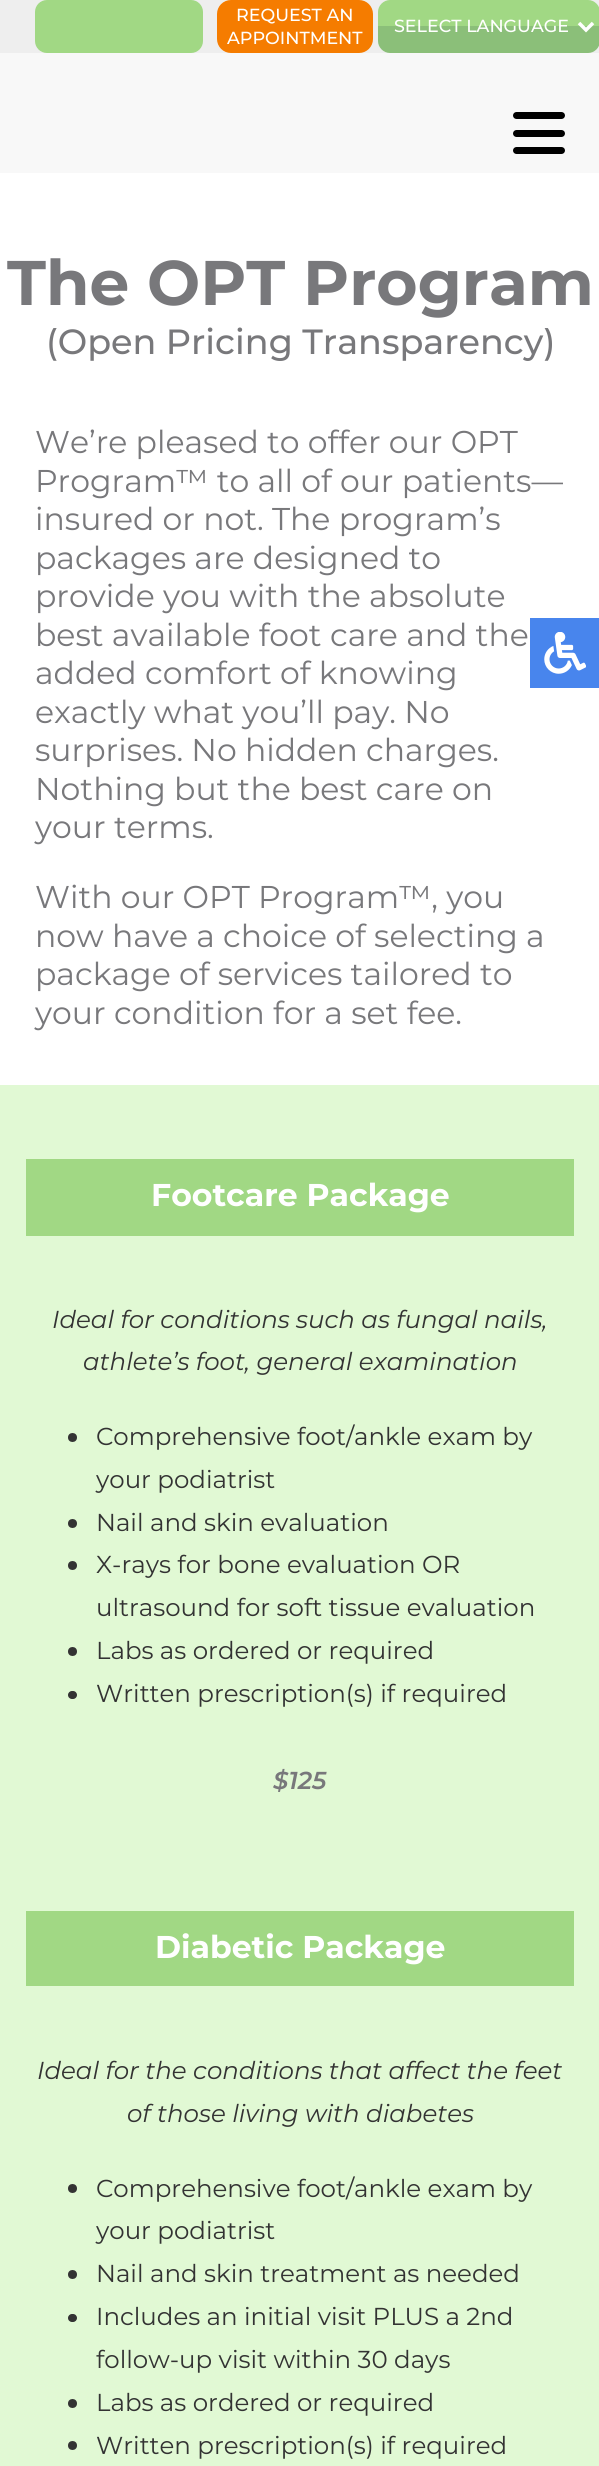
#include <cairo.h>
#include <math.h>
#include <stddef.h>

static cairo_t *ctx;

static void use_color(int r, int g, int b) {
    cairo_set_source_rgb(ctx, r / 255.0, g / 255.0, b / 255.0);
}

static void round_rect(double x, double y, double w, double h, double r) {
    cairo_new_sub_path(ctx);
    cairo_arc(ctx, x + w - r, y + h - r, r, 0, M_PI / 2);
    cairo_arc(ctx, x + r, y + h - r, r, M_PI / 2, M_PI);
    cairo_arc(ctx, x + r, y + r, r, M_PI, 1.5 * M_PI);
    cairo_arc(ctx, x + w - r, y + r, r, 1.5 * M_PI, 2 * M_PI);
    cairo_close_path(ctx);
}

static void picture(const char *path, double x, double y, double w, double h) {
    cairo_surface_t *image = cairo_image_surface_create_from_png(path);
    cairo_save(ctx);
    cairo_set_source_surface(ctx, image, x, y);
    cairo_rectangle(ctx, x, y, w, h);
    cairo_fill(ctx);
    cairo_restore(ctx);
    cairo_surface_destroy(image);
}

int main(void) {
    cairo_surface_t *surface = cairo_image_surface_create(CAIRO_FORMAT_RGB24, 599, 2466);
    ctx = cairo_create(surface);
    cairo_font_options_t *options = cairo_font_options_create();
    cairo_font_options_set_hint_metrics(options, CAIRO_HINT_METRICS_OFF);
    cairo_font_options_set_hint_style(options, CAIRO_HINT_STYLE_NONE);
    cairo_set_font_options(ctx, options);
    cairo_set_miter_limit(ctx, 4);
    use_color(255, 255, 255);
    cairo_paint(ctx);
    use_color(248, 248, 248);
    cairo_rectangle(ctx, 0, 53, 599, 120);
    cairo_fill(ctx);
    use_color(238, 238, 238);
    cairo_rectangle(ctx, 0, 0, 599, 53);
    cairo_fill(ctx);
    use_color(161, 216, 132);
    round_rect(35, 0, 168, 53, 12);
    cairo_fill(ctx);
    use_color(245, 124, 0);
    round_rect(218, 1, 154, 51, 13);
    cairo_fill_preserve(ctx);
    cairo_stroke(ctx);
    cairo_select_font_face(ctx, "Montserrat Medium", CAIRO_FONT_SLANT_NORMAL, CAIRO_FONT_WEIGHT_NORMAL);
    cairo_set_font_size(ctx, 17.5);
    use_color(255, 255, 255);
    cairo_move_to(ctx, 236, 21);
    cairo_show_text(ctx, "REQUEST AN");
    cairo_move_to(ctx, 227, 44);
    cairo_show_text(ctx, "APPOINTMENT");
    use_color(161, 216, 132);
    cairo_new_path(ctx);
    cairo_move_to(ctx, 390, 0);
    cairo_line_to(ctx, 588, 0);
    cairo_curve_to(ctx, 594.5, 0, 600, 5.5, 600, 12);
    cairo_line_to(ctx, 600, 26);
    cairo_line_to(ctx, 378, 26);
    cairo_line_to(ctx, 378, 12);
    cairo_curve_to(ctx, 378, 5.5, 383.5, 0, 390, 0);
    cairo_close_path(ctx);
    cairo_fill(ctx);
    use_color(139, 191, 121);
    cairo_new_path(ctx);
    cairo_move_to(ctx, 378, 26);
    cairo_line_to(ctx, 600, 26);
    cairo_line_to(ctx, 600, 41);
    cairo_curve_to(ctx, 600, 47.5, 594.5, 53, 588, 53);
    cairo_line_to(ctx, 390, 53);
    cairo_curve_to(ctx, 383.5, 53, 378, 47.5, 378, 41);
    cairo_close_path(ctx);
    cairo_fill(ctx);
    cairo_new_path(ctx);
    cairo_move_to(ctx, 579, 23);
    cairo_line_to(ctx, 586, 30);
    cairo_line_to(ctx, 593, 23);
    use_color(255, 255, 255);
    cairo_set_line_width(ctx, 3.5);
    cairo_stroke(ctx);
    cairo_move_to(ctx, 394, 32);
    cairo_show_text(ctx, "SELECT LANGUAGE");
    use_color(0, 0, 0);
    round_rect(513, 112, 52, 7, 3.5);
    cairo_fill(ctx);
    round_rect(513, 130, 52, 7, 3.5);
    cairo_fill(ctx);
    round_rect(513, 147, 52, 7, 3.5);
    cairo_fill(ctx);
    cairo_select_font_face(ctx, "Montserrat", CAIRO_FONT_SLANT_NORMAL, CAIRO_FONT_WEIGHT_BOLD);
    cairo_set_font_size(ctx, 63);
    use_color(120, 120, 123);
    cairo_move_to(ctx, 7, 305);
    cairo_show_text(ctx, "The OPT Program");
    cairo_select_font_face(ctx, "Montserrat Medium", CAIRO_FONT_SLANT_NORMAL, CAIRO_FONT_WEIGHT_NORMAL);
    cairo_set_font_size(ctx, 35);
    cairo_move_to(ctx, 46, 354);
    cairo_show_text(ctx, "(Open Pricing Transparency)");
    cairo_select_font_face(ctx, "Montserrat", CAIRO_FONT_SLANT_NORMAL, CAIRO_FONT_WEIGHT_NORMAL);
    cairo_set_font_size(ctx, 31.5);
    cairo_move_to(ctx, 35, 453);
    cairo_show_text(ctx, "We’re pleased to offer our OPT");
    cairo_move_to(ctx, 35, 492);
    cairo_show_text(ctx, "Program™ to all of our patients—");
    cairo_move_to(ctx, 35, 530);
    cairo_show_text(ctx, "insured or not. The program’s");
    cairo_move_to(ctx, 35, 569);
    cairo_show_text(ctx, "packages are designed to");
    cairo_move_to(ctx, 35, 607);
    cairo_show_text(ctx, "provide you with the absolute");
    cairo_move_to(ctx, 35, 646);
    cairo_show_text(ctx, "best available foot care and the");
    cairo_move_to(ctx, 35, 684);
    cairo_show_text(ctx, "added comfort of knowing");
    cairo_move_to(ctx, 35, 723);
    cairo_show_text(ctx, "exactly what you’ll pay. No");
    cairo_move_to(ctx, 35, 761);
    cairo_show_text(ctx, "surprises. No hidden charges.");
    cairo_move_to(ctx, 35, 800);
    cairo_show_text(ctx, "Nothing but the best care on");
    cairo_move_to(ctx, 35, 838);
    cairo_show_text(ctx, "your terms.");
    cairo_move_to(ctx, 35, 908);
    cairo_show_text(ctx, "With our OPT Program™, you");
    cairo_move_to(ctx, 35, 947);
    cairo_show_text(ctx, "now have a choice of selecting a");
    cairo_move_to(ctx, 35, 985);
    cairo_show_text(ctx, "package of services tailored to");
    cairo_move_to(ctx, 35, 1024);
    cairo_show_text(ctx, "your condition for a set fee.");
    use_color(225, 249, 212);
    cairo_rectangle(ctx, 0, 1085, 599, 1381);
    cairo_fill(ctx);
    use_color(161, 216, 132);
    cairo_rectangle(ctx, 26, 1159, 548, 77);
    cairo_fill(ctx);
    cairo_select_font_face(ctx, "Montserrat", CAIRO_FONT_SLANT_NORMAL, CAIRO_FONT_WEIGHT_BOLD);
    use_color(255, 255, 255);
    cairo_move_to(ctx, 151, 1206);
    cairo_show_text(ctx, "Footcare Package");
    cairo_select_font_face(ctx, "Montserrat", CAIRO_FONT_SLANT_ITALIC, CAIRO_FONT_WEIGHT_NORMAL);
    cairo_set_font_size(ctx, 24.5);
    use_color(51, 51, 51);
    cairo_move_to(ctx, 52, 1328);
    cairo_show_text(ctx, "Ideal for conditions such as fungal nails,");
    cairo_move_to(ctx, 83, 1370);
    cairo_show_text(ctx, "athlete’s foot, general examination");
    cairo_new_path(ctx);
    cairo_arc(ctx, 72.5, 1437.5, 4.5, 0, 2 * M_PI);
    cairo_fill(ctx);
    cairo_select_font_face(ctx, "Montserrat", CAIRO_FONT_SLANT_NORMAL, CAIRO_FONT_WEIGHT_NORMAL);
    cairo_move_to(ctx, 96, 1445);
    cairo_show_text(ctx, "Comprehensive foot/ankle exam by");
    cairo_move_to(ctx, 96, 1488);
    cairo_show_text(ctx, "your podiatrist");
    cairo_new_path(ctx);
    cairo_arc(ctx, 72.5, 1523.5, 4.5, 0, 2 * M_PI);
    cairo_fill(ctx);
    cairo_move_to(ctx, 96, 1531);
    cairo_show_text(ctx, "Nail and skin evaluation");
    cairo_new_path(ctx);
    cairo_arc(ctx, 72.5, 1565.5, 4.5, 0, 2 * M_PI);
    cairo_fill(ctx);
    cairo_move_to(ctx, 96, 1573);
    cairo_show_text(ctx, "X-rays for bone evaluation OR");
    cairo_move_to(ctx, 96, 1616);
    cairo_show_text(ctx, "ultrasound for soft tissue evaluation");
    cairo_new_path(ctx);
    cairo_arc(ctx, 72.5, 1651.5, 4.5, 0, 2 * M_PI);
    cairo_fill(ctx);
    cairo_move_to(ctx, 96, 1659);
    cairo_show_text(ctx, "Labs as ordered or required");
    round_rect(68, 1691, 9, 8, 4);
    cairo_fill(ctx);
    cairo_move_to(ctx, 96, 1702);
    cairo_show_text(ctx, "Written prescription(s) if required");
    cairo_select_font_face(ctx, "Montserrat SemiBold", CAIRO_FONT_SLANT_ITALIC, CAIRO_FONT_WEIGHT_NORMAL);
    use_color(120, 120, 123);
    cairo_move_to(ctx, 273, 1789);
    cairo_show_text(ctx, "$125");
    use_color(161, 216, 132);
    cairo_rectangle(ctx, 26, 1911, 548, 75);
    cairo_fill(ctx);
    cairo_select_font_face(ctx, "Montserrat", CAIRO_FONT_SLANT_NORMAL, CAIRO_FONT_WEIGHT_BOLD);
    cairo_set_font_size(ctx, 31.5);
    use_color(255, 255, 255);
    cairo_move_to(ctx, 155, 1958);
    cairo_show_text(ctx, "Diabetic Package");
    cairo_select_font_face(ctx, "Montserrat", CAIRO_FONT_SLANT_ITALIC, CAIRO_FONT_WEIGHT_NORMAL);
    cairo_set_font_size(ctx, 24.5);
    use_color(51, 51, 51);
    cairo_move_to(ctx, 37, 2079);
    cairo_show_text(ctx, "Ideal for the conditions that affect the feet");
    cairo_move_to(ctx, 127, 2122);
    cairo_show_text(ctx, "of those living with diabetes");
    cairo_new_path(ctx);
    cairo_arc(ctx, 72.5, 2188.5, 4.5, 0, 2 * M_PI);
    cairo_fill(ctx);
    cairo_select_font_face(ctx, "Montserrat", CAIRO_FONT_SLANT_NORMAL, CAIRO_FONT_WEIGHT_NORMAL);
    cairo_move_to(ctx, 96, 2197);
    cairo_show_text(ctx, "Comprehensive foot/ankle exam by");
    cairo_move_to(ctx, 96, 2239);
    cairo_show_text(ctx, "your podiatrist");
    cairo_new_path(ctx);
    cairo_arc(ctx, 72.5, 2274.5, 4.5, 0, 2 * M_PI);
    cairo_fill(ctx);
    cairo_move_to(ctx, 96, 2282);
    cairo_show_text(ctx, "Nail and skin treatment as needed");
    round_rect(68, 2314, 9, 8, 4);
    cairo_fill(ctx);
    cairo_move_to(ctx, 96, 2325);
    cairo_show_text(ctx, "Includes an initial visit PLUS a 2nd");
    cairo_move_to(ctx, 96, 2368);
    cairo_show_text(ctx, "follow-up visit within 30 days");
    cairo_new_path(ctx);
    cairo_arc(ctx, 72.5, 2403.5, 4.5, 0, 2 * M_PI);
    cairo_fill(ctx);
    cairo_move_to(ctx, 96, 2411);
    cairo_show_text(ctx, "Labs as ordered or required");
    cairo_new_path(ctx);
    cairo_arc(ctx, 72.5, 2445.5, 4.5, 0, 2 * M_PI);
    cairo_fill(ctx);
    cairo_move_to(ctx, 96, 2454);
    cairo_show_text(ctx, "Written prescription(s) if required");
    use_color(72, 133, 237);
    cairo_rectangle(ctx, 530, 618, 69, 70);
    cairo_fill(ctx);
    picture("img1.png", 544, 632, 42, 42);
    cairo_surface_write_to_png(surface, "result.png");
    cairo_font_options_destroy(options);
    cairo_destroy(ctx);
    cairo_surface_destroy(surface);
    return 0;
}
